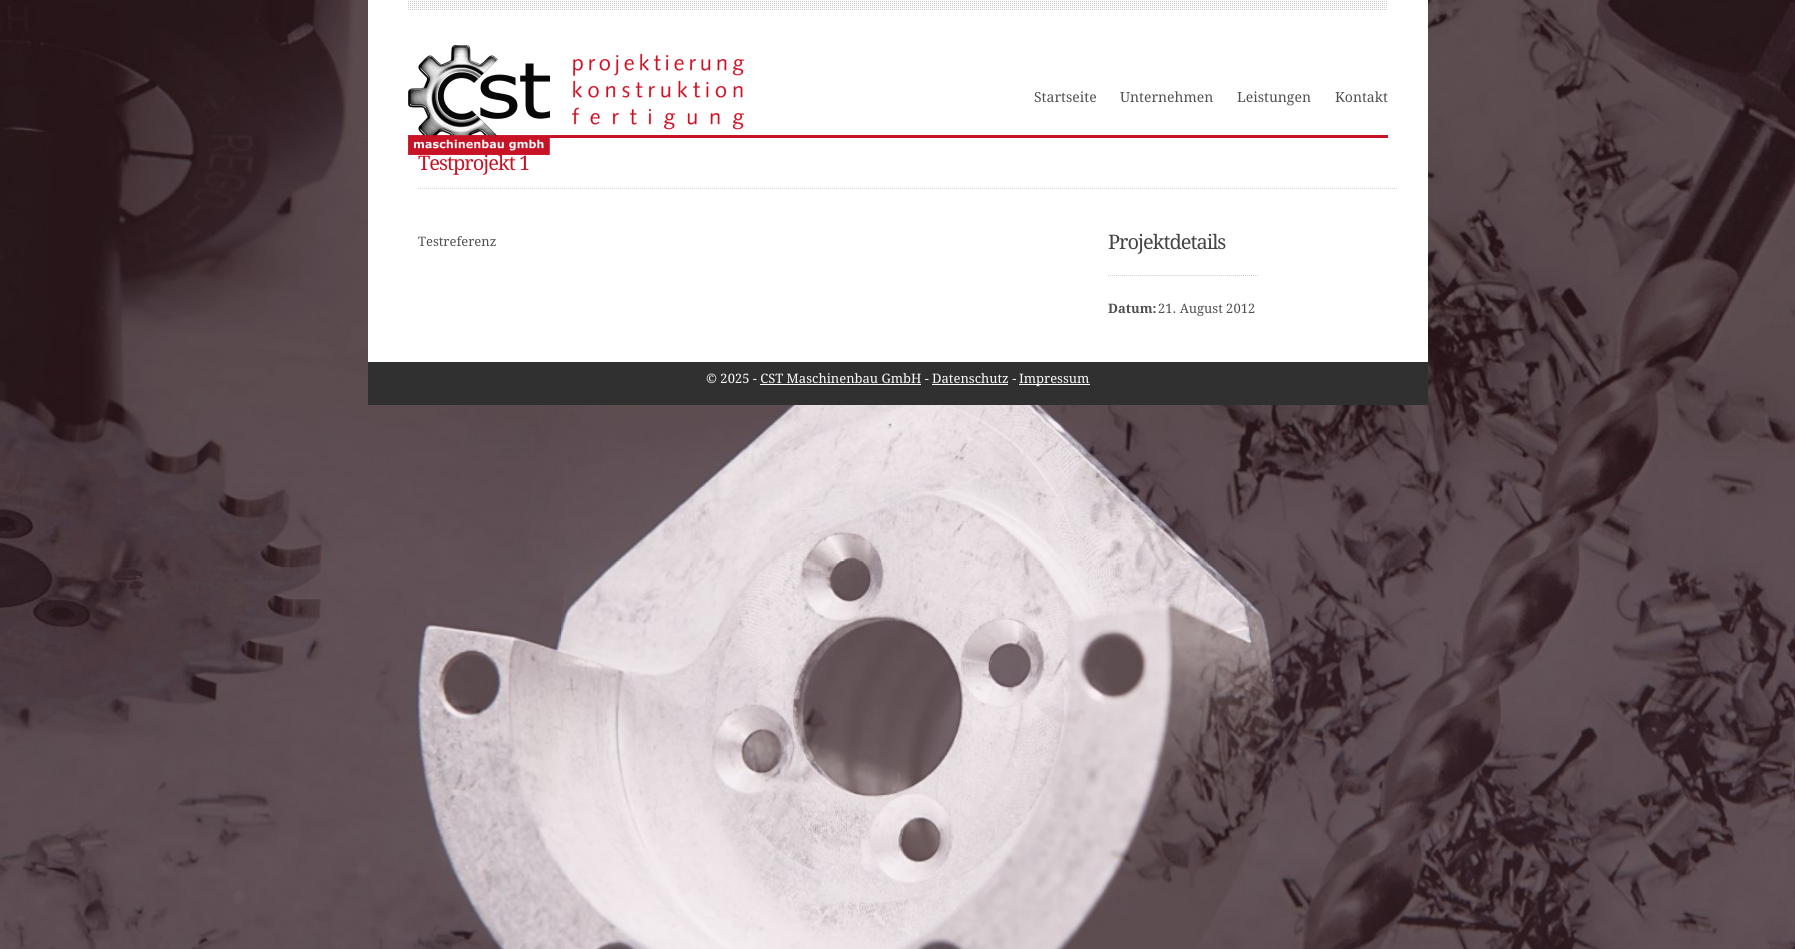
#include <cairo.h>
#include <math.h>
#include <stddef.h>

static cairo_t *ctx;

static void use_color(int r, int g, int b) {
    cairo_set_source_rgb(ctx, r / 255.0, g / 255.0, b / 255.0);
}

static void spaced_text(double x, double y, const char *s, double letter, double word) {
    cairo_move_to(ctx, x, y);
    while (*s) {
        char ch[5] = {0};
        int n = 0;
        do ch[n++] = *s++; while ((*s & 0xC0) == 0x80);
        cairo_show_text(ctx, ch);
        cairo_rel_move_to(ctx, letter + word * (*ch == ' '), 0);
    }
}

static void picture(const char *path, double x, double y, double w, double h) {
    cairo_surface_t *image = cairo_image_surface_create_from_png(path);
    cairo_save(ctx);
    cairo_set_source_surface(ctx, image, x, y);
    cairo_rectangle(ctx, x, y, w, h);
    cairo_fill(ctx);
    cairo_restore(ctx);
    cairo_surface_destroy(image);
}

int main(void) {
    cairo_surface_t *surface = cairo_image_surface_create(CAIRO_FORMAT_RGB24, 1795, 949);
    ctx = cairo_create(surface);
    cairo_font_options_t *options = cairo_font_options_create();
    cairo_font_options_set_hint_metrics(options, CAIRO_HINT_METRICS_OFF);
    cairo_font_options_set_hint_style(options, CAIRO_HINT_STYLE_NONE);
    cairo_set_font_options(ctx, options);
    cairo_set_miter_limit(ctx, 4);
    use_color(255, 255, 255);
    cairo_paint(ctx);
    picture("img1.png", 0, 0, 1795, 949);
    use_color(255, 255, 255);
    cairo_rectangle(ctx, 368, 0, 1060, 362);
    cairo_fill(ctx);
    picture("img2.png", 408, 1, 979, 9);
    use_color(200, 19, 38);
    cairo_rectangle(ctx, 408, 135, 980, 3);
    cairo_fill(ctx);
    picture("img3.png", 408, 45, 336, 110);
    cairo_select_font_face(ctx, "Droid Serif", CAIRO_FONT_SLANT_NORMAL, CAIRO_FONT_WEIGHT_NORMAL);
    cairo_set_font_size(ctx, 14);
    use_color(80, 80, 80);
    cairo_move_to(ctx, 1034, 102);
    cairo_show_text(ctx, "Startseite");
    cairo_move_to(ctx, 1120, 102);
    cairo_show_text(ctx, "Unternehmen");
    cairo_move_to(ctx, 1237, 102);
    cairo_show_text(ctx, "Leistungen");
    cairo_move_to(ctx, 1335, 102);
    cairo_show_text(ctx, "Kontakt");
    cairo_new_path(ctx);
    cairo_move_to(ctx, 418, 188.5);
    cairo_line_to(ctx, 1398, 188.5);
    use_color(216, 216, 216);
    cairo_set_line_width(ctx, 1);
    cairo_set_dash(ctx, (double[]){1, 1}, 2, 0);
    cairo_stroke(ctx);
    cairo_set_font_size(ctx, 20);
    use_color(200, 19, 38);
    spaced_text(418, 170, "Testprojekt 1", -1, 0);
    cairo_set_font_size(ctx, 13);
    use_color(80, 80, 80);
    cairo_move_to(ctx, 418, 246);
    cairo_show_text(ctx, "Testreferenz");
    picture("img4.png", 1108, 275, 150, 1);
    cairo_set_font_size(ctx, 20);
    use_color(68, 68, 68);
    spaced_text(1108, 249, "Projektdetails", -1, 0);
    cairo_select_font_face(ctx, "Droid Serif", CAIRO_FONT_SLANT_NORMAL, CAIRO_FONT_WEIGHT_BOLD);
    cairo_set_font_size(ctx, 13);
    use_color(80, 80, 80);
    cairo_move_to(ctx, 1108, 313);
    cairo_show_text(ctx, "Datum:");
    cairo_select_font_face(ctx, "Droid Serif", CAIRO_FONT_SLANT_NORMAL, CAIRO_FONT_WEIGHT_NORMAL);
    cairo_move_to(ctx, 1158, 313);
    cairo_show_text(ctx, "21. August 2012");
    use_color(48, 48, 48);
    cairo_rectangle(ctx, 368, 362, 1060, 43);
    cairo_fill(ctx);
    use_color(255, 255, 255);
    cairo_move_to(ctx, 706, 383);
    cairo_show_text(ctx, "© 2025 - CST Maschinenbau GmbH - Datenschutz -");
    cairo_rectangle(ctx, 1019, 384, 71, 1);
    cairo_fill(ctx);
    cairo_move_to(ctx, 1019, 383);
    cairo_show_text(ctx, "Impressum");
    cairo_rectangle(ctx, 760, 384, 161, 1);
    cairo_fill(ctx);
    cairo_rectangle(ctx, 932, 384, 76, 1);
    cairo_fill(ctx);
    cairo_surface_write_to_png(surface, "result.png");
    cairo_font_options_destroy(options);
    cairo_destroy(ctx);
    cairo_surface_destroy(surface);
    return 0;
}
